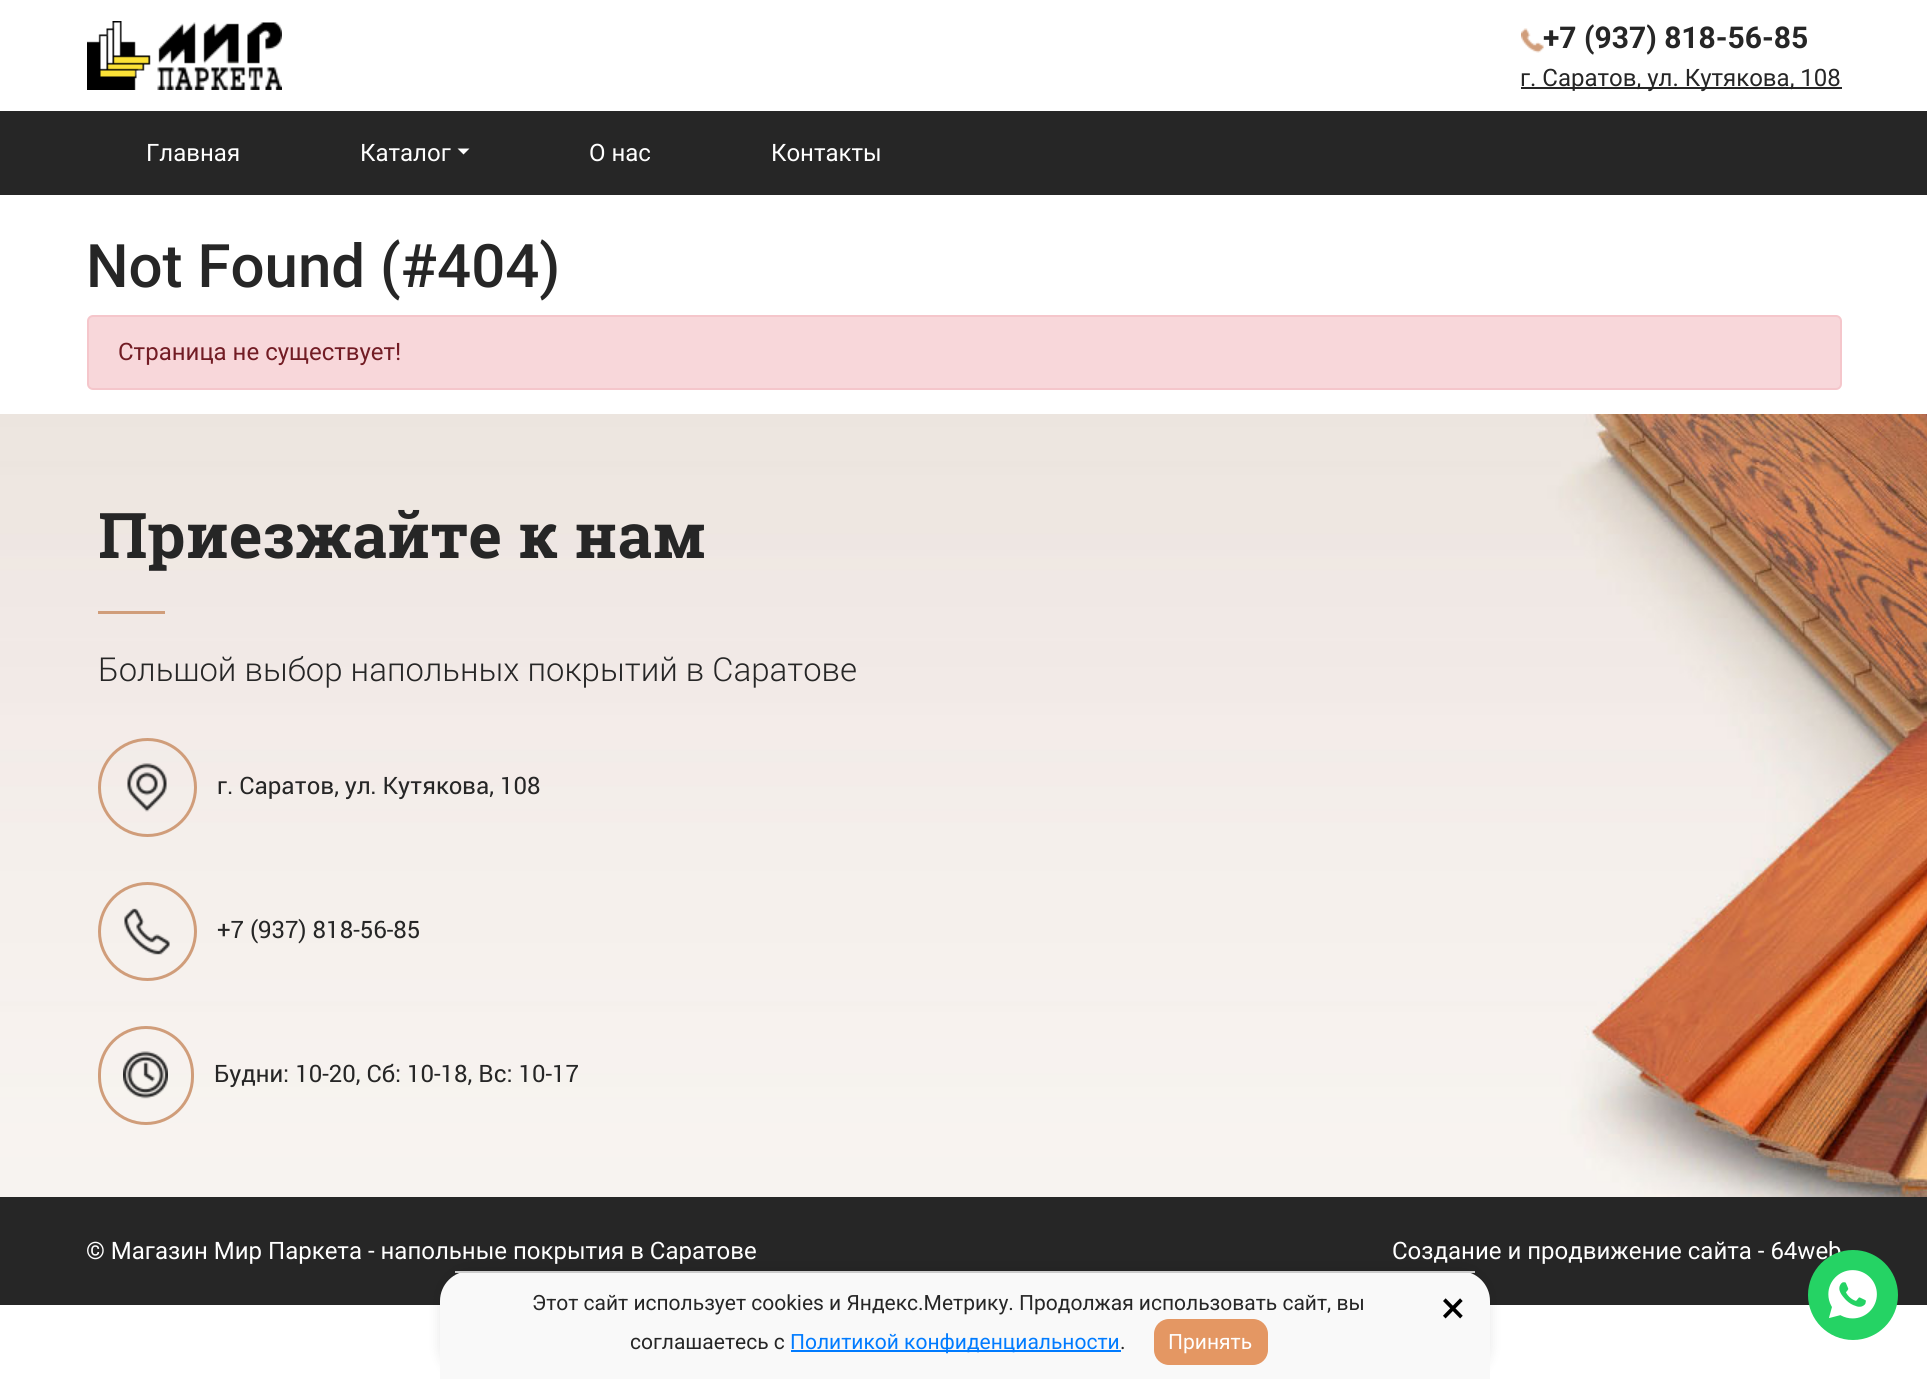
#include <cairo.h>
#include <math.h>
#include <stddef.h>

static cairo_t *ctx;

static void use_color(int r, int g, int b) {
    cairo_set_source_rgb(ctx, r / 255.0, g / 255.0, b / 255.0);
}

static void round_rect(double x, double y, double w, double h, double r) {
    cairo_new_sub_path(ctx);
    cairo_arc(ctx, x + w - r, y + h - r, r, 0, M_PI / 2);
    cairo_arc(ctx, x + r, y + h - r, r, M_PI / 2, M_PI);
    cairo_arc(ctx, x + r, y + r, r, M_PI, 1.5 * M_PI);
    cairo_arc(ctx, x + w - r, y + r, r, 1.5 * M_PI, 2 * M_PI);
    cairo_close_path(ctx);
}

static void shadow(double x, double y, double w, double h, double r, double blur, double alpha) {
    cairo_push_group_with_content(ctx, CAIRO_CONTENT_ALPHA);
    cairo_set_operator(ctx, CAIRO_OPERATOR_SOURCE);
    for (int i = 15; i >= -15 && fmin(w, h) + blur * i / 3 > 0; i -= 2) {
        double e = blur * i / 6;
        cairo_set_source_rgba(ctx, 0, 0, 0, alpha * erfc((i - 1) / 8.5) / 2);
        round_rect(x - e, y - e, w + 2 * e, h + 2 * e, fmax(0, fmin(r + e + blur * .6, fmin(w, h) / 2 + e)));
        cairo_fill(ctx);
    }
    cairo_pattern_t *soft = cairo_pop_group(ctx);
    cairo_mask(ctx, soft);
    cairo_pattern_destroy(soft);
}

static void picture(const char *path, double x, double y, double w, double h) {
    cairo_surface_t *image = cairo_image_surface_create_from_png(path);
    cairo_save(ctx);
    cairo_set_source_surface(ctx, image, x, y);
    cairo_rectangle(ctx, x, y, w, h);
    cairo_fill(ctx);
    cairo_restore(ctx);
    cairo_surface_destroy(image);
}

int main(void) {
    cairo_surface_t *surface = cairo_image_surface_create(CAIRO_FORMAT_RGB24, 1927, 1379);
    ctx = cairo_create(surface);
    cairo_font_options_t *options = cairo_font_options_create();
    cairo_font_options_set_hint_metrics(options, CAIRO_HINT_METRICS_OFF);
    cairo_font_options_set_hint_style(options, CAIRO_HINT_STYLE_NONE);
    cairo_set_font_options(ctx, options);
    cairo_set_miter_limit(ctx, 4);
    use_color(255, 255, 255);
    cairo_paint(ctx);
    picture("img1.png", 87, 21, 195, 69);
    picture("img2.png", 1521, 28, 23, 25);
    cairo_select_font_face(ctx, "Roboto", CAIRO_FONT_SLANT_NORMAL, CAIRO_FONT_WEIGHT_BOLD);
    cairo_set_font_size(ctx, 30);
    use_color(38, 38, 38);
    cairo_move_to(ctx, 1543, 48);
    cairo_show_text(ctx, "+7 (937) 818-56-85");
    cairo_rectangle(ctx, 1521, 87, 321, 2);
    cairo_fill(ctx);
    cairo_select_font_face(ctx, "Roboto", CAIRO_FONT_SLANT_NORMAL, CAIRO_FONT_WEIGHT_NORMAL);
    cairo_set_font_size(ctx, 24);
    cairo_move_to(ctx, 1520, 86);
    cairo_show_text(ctx, "г. Саратов, ул. Кутякова, 108");
    cairo_rectangle(ctx, 0, 111, 1927, 84);
    cairo_fill(ctx);
    use_color(255, 255, 255);
    cairo_move_to(ctx, 146, 161);
    cairo_show_text(ctx, "Главная");
    cairo_move_to(ctx, 360, 161);
    cairo_show_text(ctx, "Каталог");
    cairo_new_path(ctx);
    cairo_move_to(ctx, 457.5, 148.5);
    cairo_line_to(ctx, 469.5, 148.5);
    cairo_line_to(ctx, 463.5, 154.5);
    cairo_close_path(ctx);
    cairo_fill(ctx);
    cairo_move_to(ctx, 589, 161);
    cairo_show_text(ctx, "О нас");
    cairo_move_to(ctx, 771, 161);
    cairo_show_text(ctx, "Контакты");
    cairo_select_font_face(ctx, "Roboto Medium", CAIRO_FONT_SLANT_NORMAL, CAIRO_FONT_WEIGHT_NORMAL);
    cairo_set_font_size(ctx, 60);
    use_color(38, 38, 38);
    cairo_move_to(ctx, 86, 287);
    cairo_show_text(ctx, "Not Found (#404)");
    use_color(248, 215, 218);
    round_rect(88, 316, 1753, 73, 5);
    cairo_fill_preserve(ctx);
    use_color(245, 198, 203);
    cairo_stroke(ctx);
    cairo_select_font_face(ctx, "Roboto", CAIRO_FONT_SLANT_NORMAL, CAIRO_FONT_WEIGHT_NORMAL);
    cairo_set_font_size(ctx, 24);
    use_color(114, 28, 36);
    cairo_move_to(ctx, 118, 360);
    cairo_show_text(ctx, "Страница не существует!");
    picture("img3.png", 0, 414, 1927, 783);
    cairo_select_font_face(ctx, "Roboto Slab", CAIRO_FONT_SLANT_NORMAL, CAIRO_FONT_WEIGHT_BOLD);
    cairo_set_font_size(ctx, 63);
    use_color(38, 38, 38);
    cairo_move_to(ctx, 98, 558);
    cairo_show_text(ctx, "Приезжайте к нам");
    use_color(208, 157, 122);
    cairo_rectangle(ctx, 98, 611, 67, 3);
    cairo_fill(ctx);
    cairo_select_font_face(ctx, "Roboto Light", CAIRO_FONT_SLANT_NORMAL, CAIRO_FONT_WEIGHT_NORMAL);
    cairo_set_font_size(ctx, 33);
    use_color(38, 38, 38);
    cairo_move_to(ctx, 98, 681);
    cairo_show_text(ctx, "Большой выбор напольных покрытий в Саратове");
    cairo_new_path(ctx);
    cairo_arc(ctx, 147.5, 787.5, 48, 0, 2 * M_PI);
    use_color(208, 157, 122);
    cairo_set_line_width(ctx, 3);
    cairo_stroke(ctx);
    picture("img4.png", 127, 763, 40, 49);
    cairo_select_font_face(ctx, "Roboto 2", CAIRO_FONT_SLANT_NORMAL, CAIRO_FONT_WEIGHT_NORMAL);
    cairo_set_font_size(ctx, 24);
    use_color(38, 38, 38);
    cairo_move_to(ctx, 217, 794);
    cairo_show_text(ctx, "г. Саратов, ул. Кутякова, 108");
    cairo_new_path(ctx);
    cairo_arc(ctx, 147.5, 931.5, 48, 0, 2 * M_PI);
    use_color(208, 157, 122);
    cairo_stroke(ctx);
    picture("img5.png", 124, 908, 46, 47);
    use_color(38, 38, 38);
    cairo_move_to(ctx, 217, 938);
    cairo_show_text(ctx, "+7 (937) 818-56-85");
    round_rect(99.5, 1027.5, 93, 96, 46.5);
    use_color(208, 157, 122);
    cairo_stroke(ctx);
    picture("img6.png", 123, 1051, 45, 48);
    use_color(38, 38, 38);
    cairo_move_to(ctx, 214, 1082);
    cairo_show_text(ctx, "Будни: 10-20, Сб: 10-18, Вс: 10-17");
    cairo_rectangle(ctx, 0, 1197, 1927, 108);
    cairo_fill(ctx);
    cairo_select_font_face(ctx, "Roboto", CAIRO_FONT_SLANT_NORMAL, CAIRO_FONT_WEIGHT_NORMAL);
    use_color(255, 255, 255);
    cairo_move_to(ctx, 86, 1259);
    cairo_show_text(ctx, "© Магазин Мир Паркета - напольные покрытия в Саратове");
    cairo_move_to(ctx, 1392, 1259);
    cairo_show_text(ctx, "Создание и продвижение сайта - 64web");
    use_color(37, 211, 100);
    cairo_new_path(ctx);
    cairo_arc(ctx, 1853, 1295, 45, 0, 2 * M_PI);
    cairo_fill(ctx);
    picture("img7.png", 1828, 1270, 49, 49);
    use_color(0, 0, 0);
    shadow(440, 1268, 1050, 109, 30, 6, 0.1);
    use_color(249, 249, 249);
    cairo_new_path(ctx);
    cairo_move_to(ctx, 470, 1271);
    cairo_line_to(ctx, 1460, 1271);
    cairo_curve_to(ctx, 1476.5, 1271, 1490, 1284.5, 1490, 1301);
    cairo_line_to(ctx, 1490, 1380);
    cairo_line_to(ctx, 440, 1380);
    cairo_line_to(ctx, 440, 1301);
    cairo_curve_to(ctx, 440, 1284.5, 453.5, 1271, 470, 1271);
    cairo_close_path(ctx);
    cairo_fill(ctx);
    use_color(204, 204, 204);
    cairo_rectangle(ctx, 455, 1271, 1020, 2);
    cairo_fill(ctx);
    cairo_set_font_size(ctx, 21);
    use_color(38, 38, 38);
    cairo_move_to(ctx, 532, 1310);
    cairo_show_text(ctx, "Этот сайт использует cookies и Яндекс.Метрику. Продолжая использовать сайт, вы");
    cairo_set_font_size(ctx, 45);
    use_color(0, 0, 0);
    cairo_move_to(ctx, 1441, 1323);
    cairo_show_text(ctx, "×");
    cairo_set_font_size(ctx, 21);
    use_color(38, 38, 38);
    cairo_move_to(ctx, 630, 1349);
    cairo_show_text(ctx, "соглашаетесь с");
    use_color(0, 123, 255);
    cairo_rectangle(ctx, 791, 1350, 330, 2);
    cairo_fill(ctx);
    cairo_move_to(ctx, 790, 1349);
    cairo_show_text(ctx, "Политикой конфиденциальности");
    use_color(38, 38, 38);
    cairo_move_to(ctx, 1120, 1349);
    cairo_show_text(ctx, ".");
    use_color(228, 151, 99);
    round_rect(1154, 1319, 114, 46, 15);
    cairo_fill(ctx);
    use_color(255, 255, 255);
    cairo_move_to(ctx, 1168, 1349);
    cairo_show_text(ctx, "Принять");
    cairo_surface_write_to_png(surface, "result.png");
    cairo_font_options_destroy(options);
    cairo_destroy(ctx);
    cairo_surface_destroy(surface);
    return 0;
}
